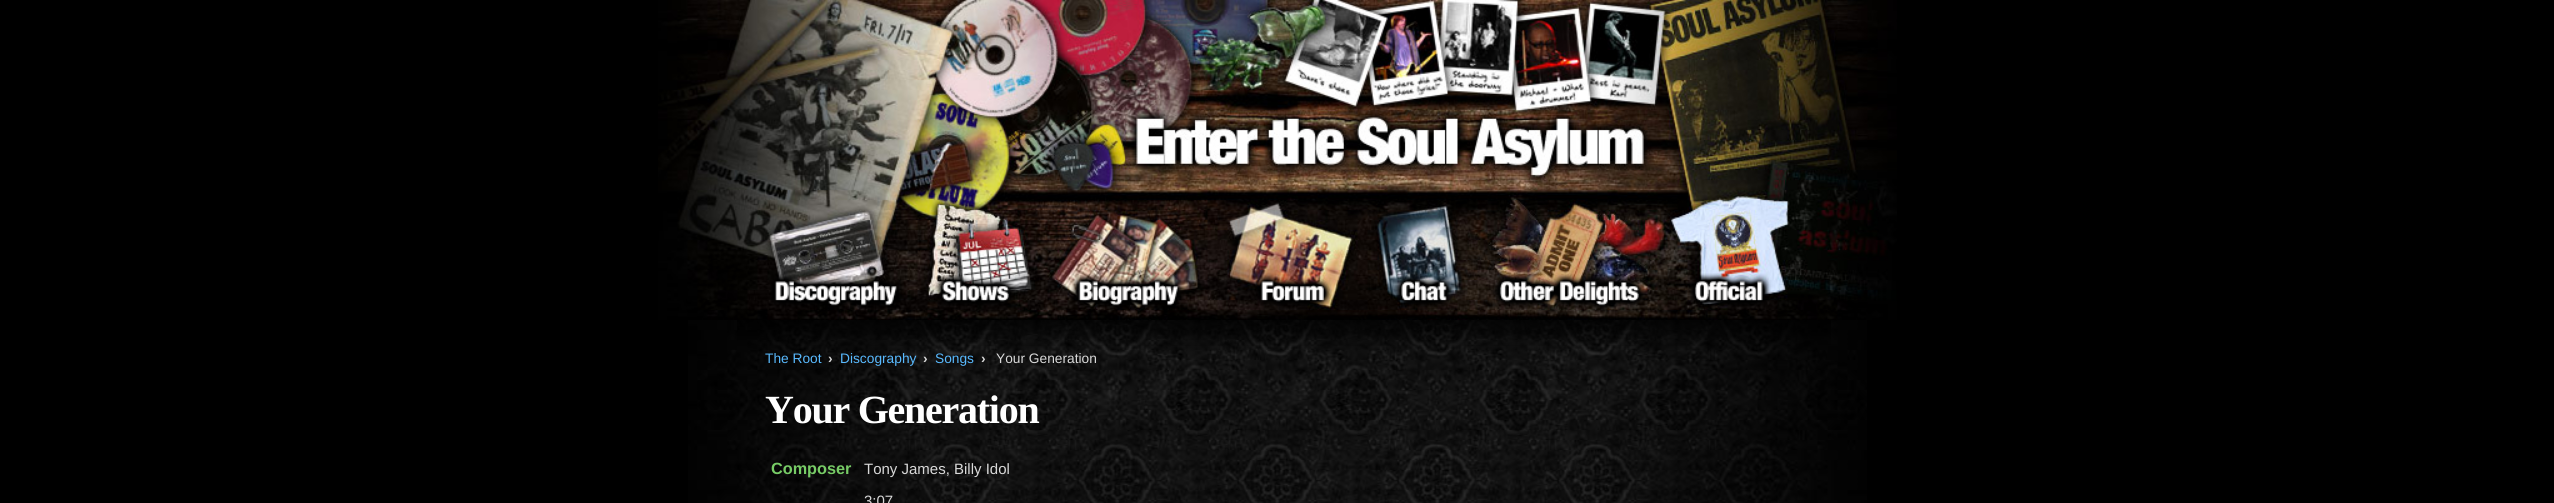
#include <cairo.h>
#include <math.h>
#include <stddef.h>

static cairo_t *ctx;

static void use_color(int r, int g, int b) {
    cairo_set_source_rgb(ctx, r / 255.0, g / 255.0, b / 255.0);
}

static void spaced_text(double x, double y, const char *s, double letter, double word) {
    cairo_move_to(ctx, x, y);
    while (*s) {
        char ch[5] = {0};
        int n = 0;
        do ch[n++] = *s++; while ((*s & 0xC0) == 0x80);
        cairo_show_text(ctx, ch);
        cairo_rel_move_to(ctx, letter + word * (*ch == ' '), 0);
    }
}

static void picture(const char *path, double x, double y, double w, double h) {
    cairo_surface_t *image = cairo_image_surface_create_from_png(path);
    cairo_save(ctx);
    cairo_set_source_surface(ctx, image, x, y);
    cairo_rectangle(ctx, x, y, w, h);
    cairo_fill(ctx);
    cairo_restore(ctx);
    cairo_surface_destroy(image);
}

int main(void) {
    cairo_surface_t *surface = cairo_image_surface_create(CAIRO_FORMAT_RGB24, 2554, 503);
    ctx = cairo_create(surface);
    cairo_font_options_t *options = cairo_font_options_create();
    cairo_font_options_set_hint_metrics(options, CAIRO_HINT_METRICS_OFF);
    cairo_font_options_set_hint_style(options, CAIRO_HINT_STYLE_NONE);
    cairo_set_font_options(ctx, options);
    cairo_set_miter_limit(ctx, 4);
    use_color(0, 0, 0);
    cairo_paint(ctx);
    picture("img1.png", 688, 320, 1179, 183);
    picture("img2.png", 658, 0, 1239, 320);
    picture("img3.png", 770, 274, 132, 36);
    picture("img4.png", 935, 273, 81, 33);
    picture("img5.png", 1071, 273, 115, 38);
    picture("img6.png", 1254, 273, 78, 33);
    picture("img7.png", 1393, 274, 61, 33);
    picture("img8.png", 1493, 273, 153, 38);
    picture("img9.png", 1688, 273, 83, 34);
    picture("img10.png", 737, 320, 1094, 26);
    cairo_select_font_face(ctx, "Liberation Sans", CAIRO_FONT_SLANT_NORMAL, CAIRO_FONT_WEIGHT_NORMAL);
    cairo_set_font_size(ctx, 13.75);
    use_color(89, 186, 255);
    cairo_move_to(ctx, 765, 363);
    cairo_show_text(ctx, "The Root");
    cairo_select_font_face(ctx, "Liberation Sans", CAIRO_FONT_SLANT_NORMAL, CAIRO_FONT_WEIGHT_BOLD);
    use_color(217, 217, 217);
    cairo_move_to(ctx, 828, 363);
    cairo_show_text(ctx, "›");
    cairo_select_font_face(ctx, "Liberation Sans", CAIRO_FONT_SLANT_NORMAL, CAIRO_FONT_WEIGHT_NORMAL);
    use_color(89, 186, 255);
    cairo_move_to(ctx, 840, 363);
    cairo_show_text(ctx, "Discography");
    cairo_select_font_face(ctx, "Liberation Sans", CAIRO_FONT_SLANT_NORMAL, CAIRO_FONT_WEIGHT_BOLD);
    use_color(217, 217, 217);
    cairo_move_to(ctx, 923, 363);
    cairo_show_text(ctx, "›");
    cairo_select_font_face(ctx, "Liberation Sans", CAIRO_FONT_SLANT_NORMAL, CAIRO_FONT_WEIGHT_NORMAL);
    use_color(89, 186, 255);
    cairo_move_to(ctx, 935, 363);
    cairo_show_text(ctx, "Songs");
    cairo_select_font_face(ctx, "Liberation Sans", CAIRO_FONT_SLANT_NORMAL, CAIRO_FONT_WEIGHT_BOLD);
    use_color(217, 217, 217);
    cairo_move_to(ctx, 981, 363);
    cairo_show_text(ctx, "›");
    cairo_select_font_face(ctx, "Liberation Sans", CAIRO_FONT_SLANT_NORMAL, CAIRO_FONT_WEIGHT_NORMAL);
    cairo_move_to(ctx, 996, 363);
    cairo_show_text(ctx, "Your Generation");
    cairo_select_font_face(ctx, "Liberation Serif", CAIRO_FONT_SLANT_NORMAL, CAIRO_FONT_WEIGHT_BOLD);
    cairo_set_font_size(ctx, 40);
    use_color(255, 255, 255);
    spaced_text(765, 423, "Your Generation", -1.25, 0);
    cairo_select_font_face(ctx, "Liberation Sans", CAIRO_FONT_SLANT_NORMAL, CAIRO_FONT_WEIGHT_BOLD);
    cairo_set_font_size(ctx, 16.25);
    use_color(119, 204, 102);
    cairo_move_to(ctx, 771, 474);
    cairo_show_text(ctx, "Composer");
    cairo_select_font_face(ctx, "Liberation Sans", CAIRO_FONT_SLANT_NORMAL, CAIRO_FONT_WEIGHT_NORMAL);
    cairo_set_font_size(ctx, 15);
    use_color(217, 217, 217);
    cairo_move_to(ctx, 864, 474);
    cairo_show_text(ctx, "Tony James, Billy Idol");
    cairo_move_to(ctx, 864, 506);
    cairo_show_text(ctx, "3:07");
    cairo_surface_write_to_png(surface, "result.png");
    cairo_font_options_destroy(options);
    cairo_destroy(ctx);
    cairo_surface_destroy(surface);
    return 0;
}
